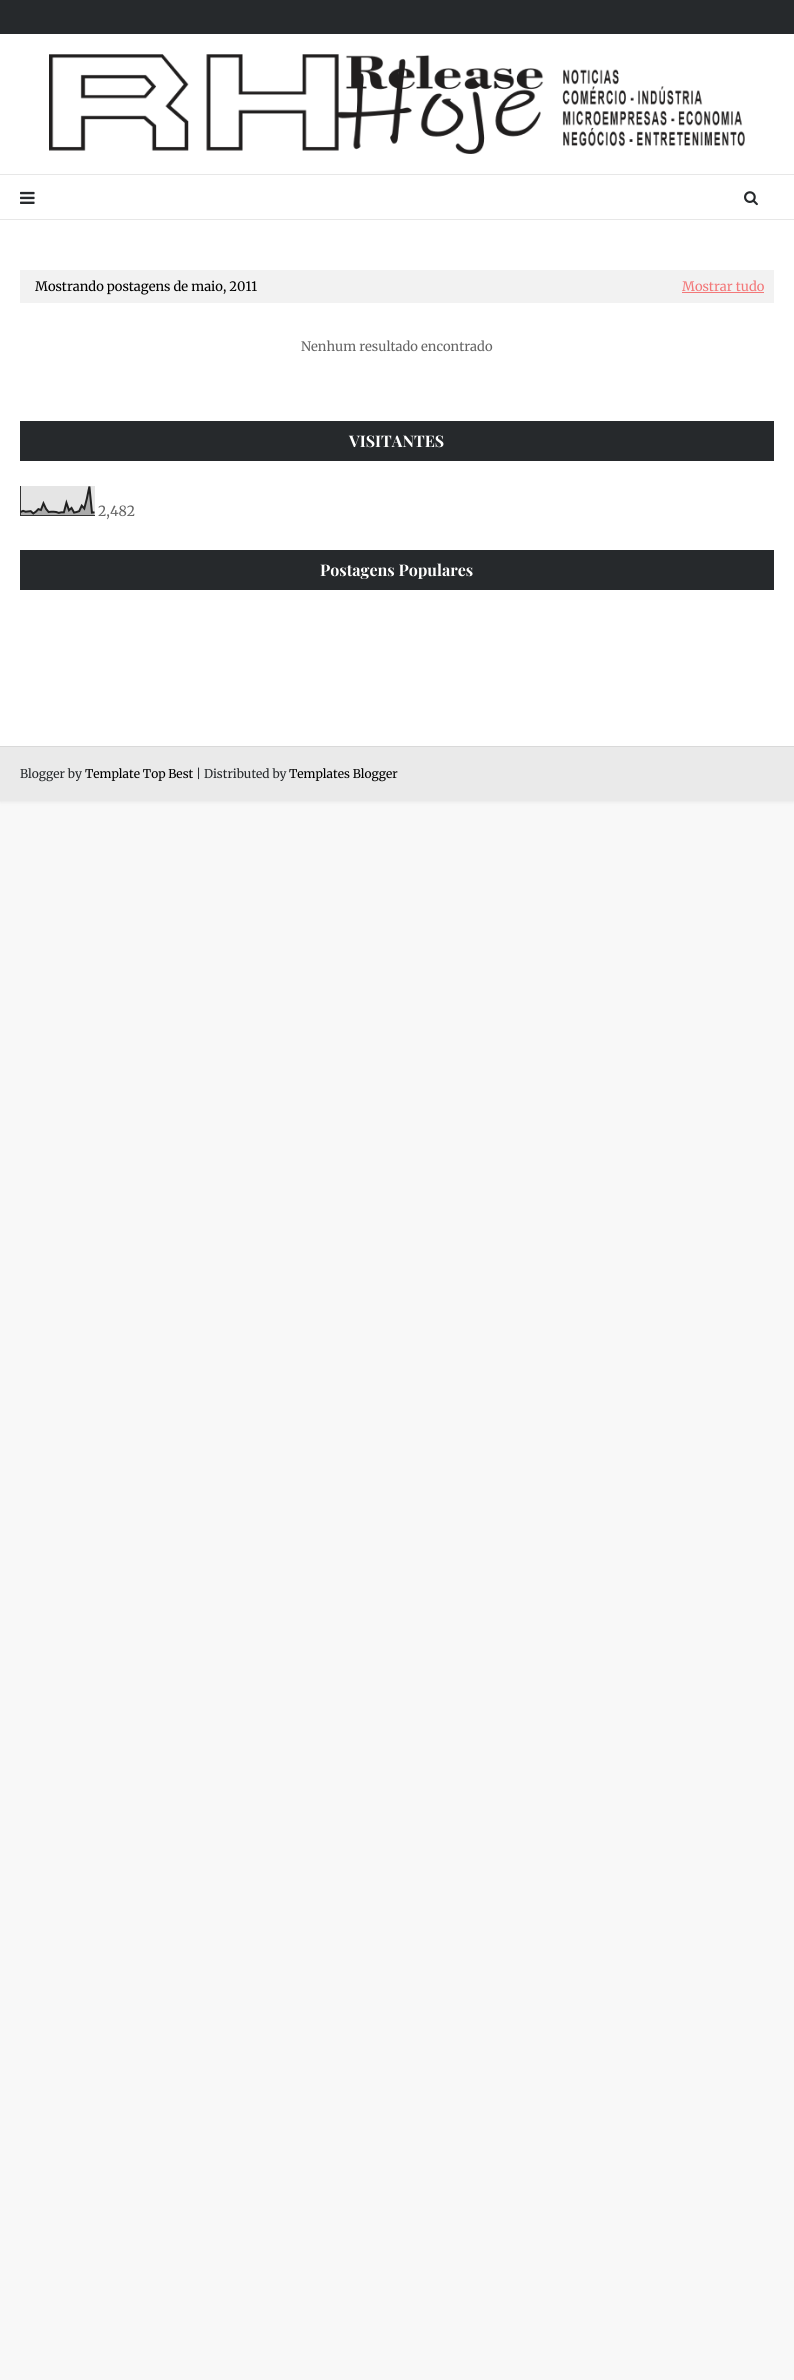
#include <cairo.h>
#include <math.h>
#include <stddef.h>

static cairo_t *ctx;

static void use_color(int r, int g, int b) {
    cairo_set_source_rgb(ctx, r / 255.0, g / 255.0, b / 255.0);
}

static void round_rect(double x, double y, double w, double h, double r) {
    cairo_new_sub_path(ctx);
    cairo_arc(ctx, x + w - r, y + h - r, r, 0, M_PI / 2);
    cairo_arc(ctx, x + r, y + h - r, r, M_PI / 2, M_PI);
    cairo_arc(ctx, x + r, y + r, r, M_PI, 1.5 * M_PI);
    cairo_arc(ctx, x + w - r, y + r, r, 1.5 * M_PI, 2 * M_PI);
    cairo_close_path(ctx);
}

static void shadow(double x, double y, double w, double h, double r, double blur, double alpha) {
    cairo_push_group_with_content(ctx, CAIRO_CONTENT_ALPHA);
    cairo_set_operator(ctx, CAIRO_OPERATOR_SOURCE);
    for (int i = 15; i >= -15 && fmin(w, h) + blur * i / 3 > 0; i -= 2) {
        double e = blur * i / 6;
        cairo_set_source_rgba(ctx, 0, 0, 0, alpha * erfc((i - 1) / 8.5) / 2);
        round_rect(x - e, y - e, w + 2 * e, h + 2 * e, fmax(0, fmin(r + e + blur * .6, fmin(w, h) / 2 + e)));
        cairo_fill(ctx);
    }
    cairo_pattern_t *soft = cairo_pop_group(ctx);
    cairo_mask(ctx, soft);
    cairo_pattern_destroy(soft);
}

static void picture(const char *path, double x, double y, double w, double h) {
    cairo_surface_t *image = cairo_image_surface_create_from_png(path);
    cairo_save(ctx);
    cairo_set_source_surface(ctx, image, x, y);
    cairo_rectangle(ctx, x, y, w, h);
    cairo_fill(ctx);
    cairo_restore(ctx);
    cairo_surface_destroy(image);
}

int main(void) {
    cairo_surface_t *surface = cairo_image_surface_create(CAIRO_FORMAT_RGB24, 794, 2380);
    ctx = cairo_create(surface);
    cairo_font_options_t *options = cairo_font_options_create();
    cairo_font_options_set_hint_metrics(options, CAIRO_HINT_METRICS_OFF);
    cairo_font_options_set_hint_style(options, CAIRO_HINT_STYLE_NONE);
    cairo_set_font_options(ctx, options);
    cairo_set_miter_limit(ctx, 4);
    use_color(248, 248, 248);
    cairo_paint(ctx);
    use_color(0, 0, 0);
    shadow(0, 0, 794, 801, 0, 2.5, 0.1);
    use_color(255, 255, 255);
    cairo_rectangle(ctx, 0, 34, 794, 712);
    cairo_fill(ctx);
    use_color(38, 41, 44);
    cairo_rectangle(ctx, 0, 0, 794, 34);
    cairo_fill(ctx);
    picture("img1.png", 49, 54, 696, 100);
    use_color(231, 231, 231);
    cairo_rectangle(ctx, 0, 174, 794, 1);
    cairo_fill(ctx);
    cairo_rectangle(ctx, 0, 219, 794, 1);
    cairo_fill(ctx);
    picture("img2.png", 20, 191, 15, 13);
    picture("img3.png", 744, 191, 14, 15);
    use_color(242, 242, 242);
    cairo_rectangle(ctx, 20, 270, 754, 33);
    cairo_fill(ctx);
    cairo_select_font_face(ctx, "Merriweather Light", CAIRO_FONT_SLANT_NORMAL, CAIRO_FONT_WEIGHT_NORMAL);
    cairo_set_font_size(ctx, 13);
    use_color(0, 0, 0);
    cairo_move_to(ctx, 35, 291);
    cairo_show_text(ctx, "Mostrando postagens de maio, 2011");
    use_color(243, 120, 121);
    cairo_move_to(ctx, 682, 291);
    cairo_show_text(ctx, "Mostrar tudo");
    cairo_rectangle(ctx, 682, 292, 82, 1);
    cairo_fill(ctx);
    use_color(101, 101, 101);
    cairo_move_to(ctx, 301, 351);
    cairo_show_text(ctx, "Nenhum resultado encontrado");
    use_color(38, 41, 44);
    cairo_rectangle(ctx, 20, 421, 754, 40);
    cairo_fill(ctx);
    cairo_select_font_face(ctx, "Playfair Display", CAIRO_FONT_SLANT_NORMAL, CAIRO_FONT_WEIGHT_BOLD);
    cairo_set_font_size(ctx, 16);
    use_color(255, 255, 255);
    cairo_move_to(ctx, 349, 447);
    cairo_show_text(ctx, "VISITANTES");
    picture("img4.png", 20, 486, 75, 30);
    cairo_select_font_face(ctx, "Merriweather Light", CAIRO_FONT_SLANT_NORMAL, CAIRO_FONT_WEIGHT_NORMAL);
    cairo_set_font_size(ctx, 14);
    use_color(101, 101, 101);
    cairo_move_to(ctx, 98, 516);
    cairo_show_text(ctx, "2,482");
    use_color(38, 41, 44);
    cairo_rectangle(ctx, 20, 550, 754, 40);
    cairo_fill(ctx);
    cairo_select_font_face(ctx, "Playfair Display", CAIRO_FONT_SLANT_NORMAL, CAIRO_FONT_WEIGHT_BOLD);
    cairo_set_font_size(ctx, 16);
    use_color(255, 255, 255);
    cairo_move_to(ctx, 320, 576);
    cairo_show_text(ctx, "Postagens Populares");
    use_color(234, 234, 234);
    cairo_rectangle(ctx, 0, 747, 794, 54);
    cairo_fill(ctx);
    use_color(217, 217, 217);
    cairo_rectangle(ctx, 0, 746, 794, 1);
    cairo_fill(ctx);
    cairo_select_font_face(ctx, "Merriweather Light", CAIRO_FONT_SLANT_NORMAL, CAIRO_FONT_WEIGHT_NORMAL);
    cairo_set_font_size(ctx, 12);
    use_color(38, 41, 44);
    cairo_move_to(ctx, 20, 778);
    cairo_show_text(ctx, "Blogger by");
    use_color(0, 0, 0);
    cairo_move_to(ctx, 85, 778);
    cairo_show_text(ctx, "Template Top Best");
    use_color(38, 41, 44);
    cairo_move_to(ctx, 196, 778);
    cairo_show_text(ctx, "| Distributed by");
    use_color(0, 0, 0);
    cairo_move_to(ctx, 289, 778);
    cairo_show_text(ctx, "Templates Blogger");
    cairo_surface_write_to_png(surface, "result.png");
    cairo_font_options_destroy(options);
    cairo_destroy(ctx);
    cairo_surface_destroy(surface);
    return 0;
}
